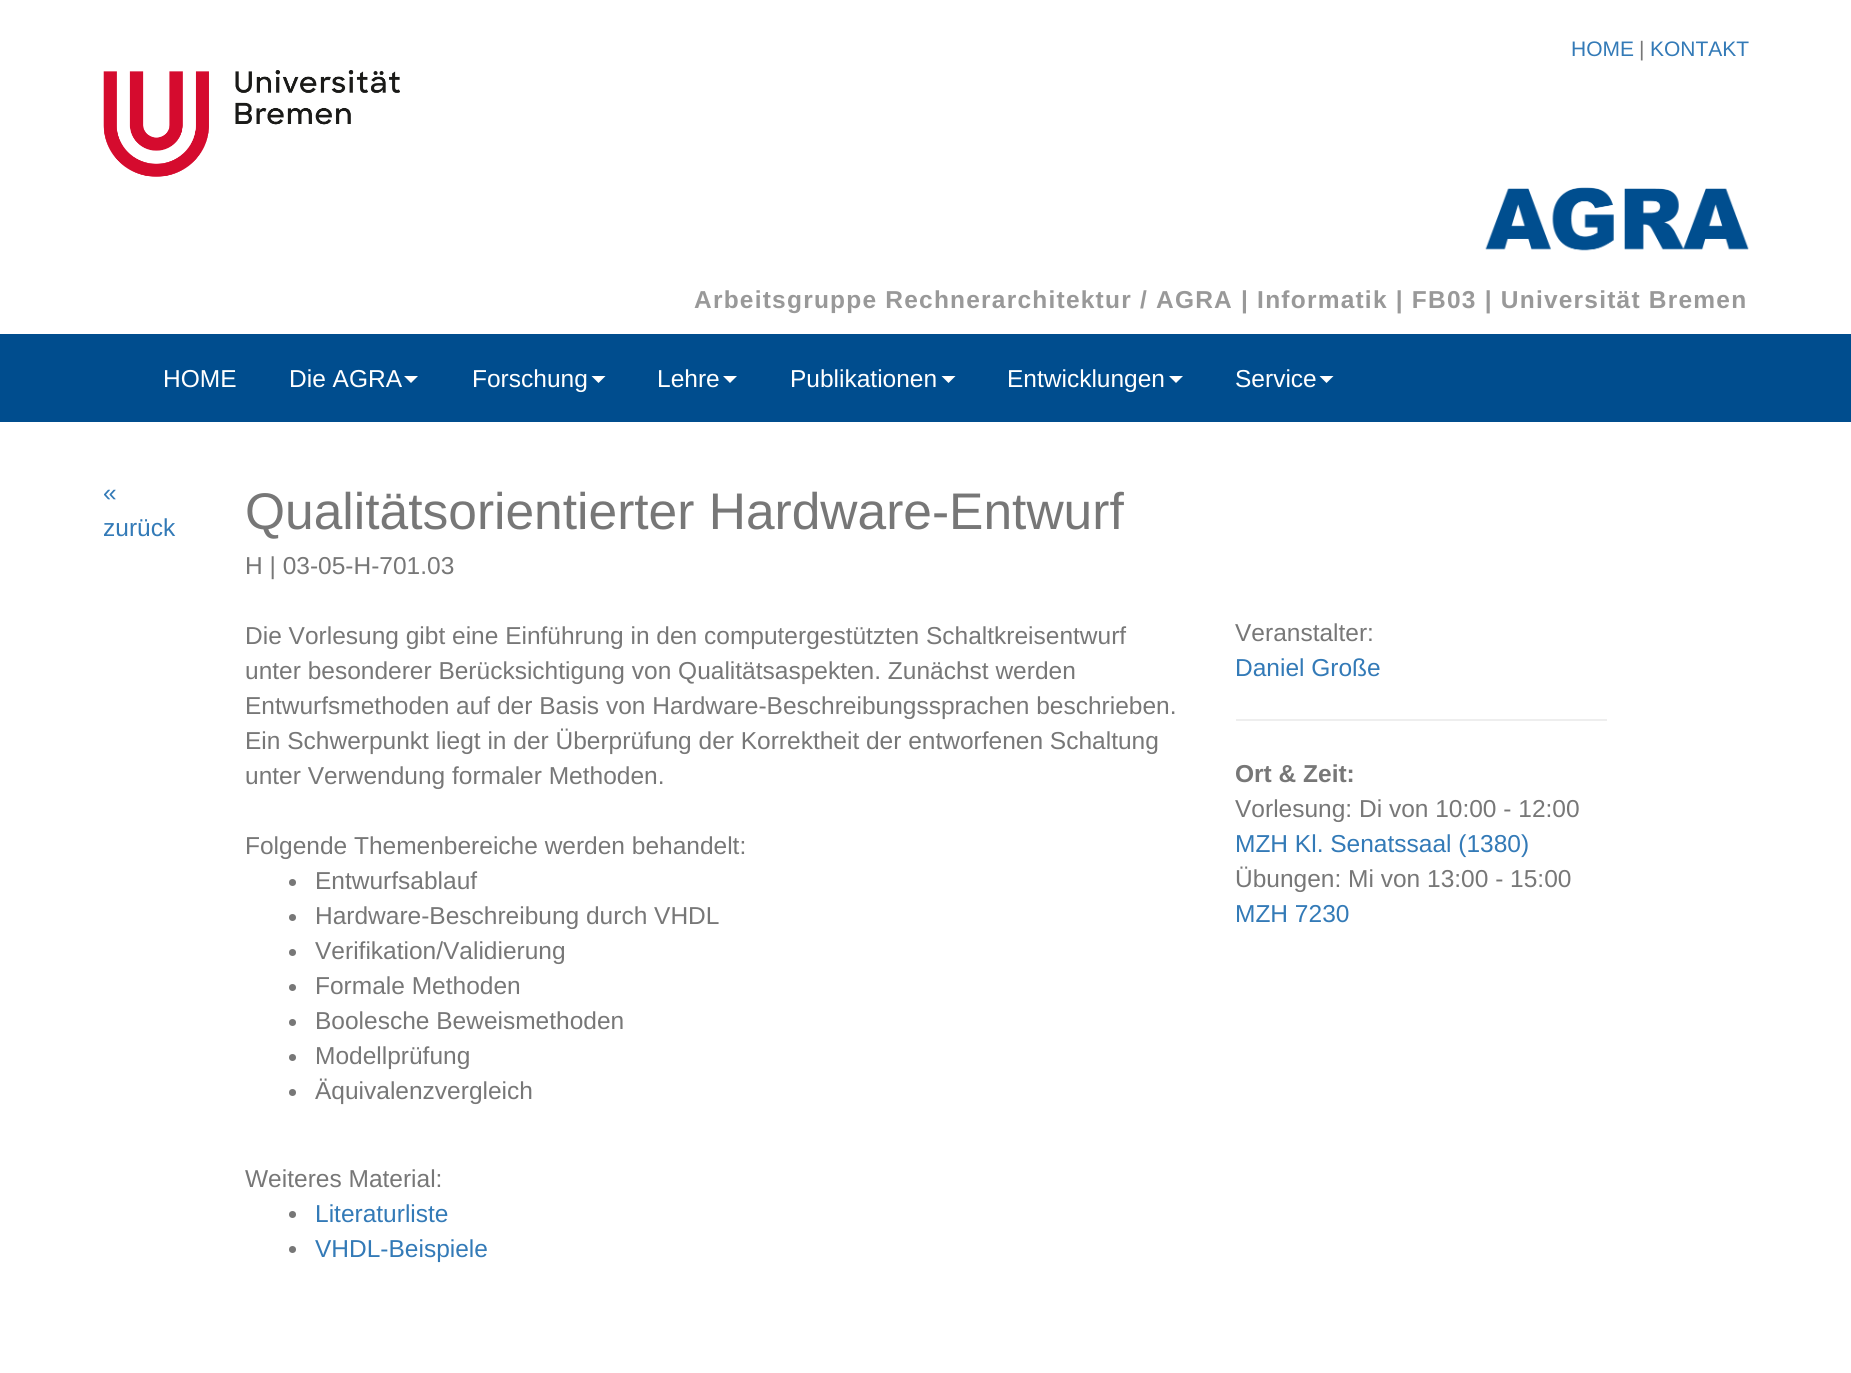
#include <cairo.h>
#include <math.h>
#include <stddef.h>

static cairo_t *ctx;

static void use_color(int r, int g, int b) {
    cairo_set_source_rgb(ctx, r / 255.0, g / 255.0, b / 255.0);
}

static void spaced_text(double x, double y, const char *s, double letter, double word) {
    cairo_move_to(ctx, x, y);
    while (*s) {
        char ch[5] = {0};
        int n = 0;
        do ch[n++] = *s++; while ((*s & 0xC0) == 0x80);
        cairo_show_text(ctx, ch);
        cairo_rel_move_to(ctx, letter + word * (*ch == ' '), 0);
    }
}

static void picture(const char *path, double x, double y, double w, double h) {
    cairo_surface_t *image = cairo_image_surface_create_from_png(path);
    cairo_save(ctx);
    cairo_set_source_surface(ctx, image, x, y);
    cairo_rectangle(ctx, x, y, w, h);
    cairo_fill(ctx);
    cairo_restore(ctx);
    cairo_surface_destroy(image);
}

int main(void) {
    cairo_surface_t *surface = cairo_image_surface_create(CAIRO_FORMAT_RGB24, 1851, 1373);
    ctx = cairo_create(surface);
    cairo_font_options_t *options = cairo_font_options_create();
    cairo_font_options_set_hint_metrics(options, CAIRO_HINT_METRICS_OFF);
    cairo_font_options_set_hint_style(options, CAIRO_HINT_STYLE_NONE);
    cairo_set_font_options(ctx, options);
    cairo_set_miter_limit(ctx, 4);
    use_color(255, 255, 255);
    cairo_paint(ctx);
    cairo_select_font_face(ctx, "Liberation Sans", CAIRO_FONT_SLANT_NORMAL, CAIRO_FONT_WEIGHT_NORMAL);
    cairo_set_font_size(ctx, 21);
    use_color(51, 122, 183);
    cairo_move_to(ctx, 1571, 56);
    cairo_show_text(ctx, "HOME");
    use_color(119, 119, 119);
    cairo_move_to(ctx, 1639, 56);
    cairo_show_text(ctx, "|");
    use_color(51, 122, 183);
    cairo_move_to(ctx, 1650, 56);
    cairo_show_text(ctx, "KONTAKT");
    picture("img1.png", 103, 70, 297, 107);
    picture("img2.png", 1485, 187, 264, 64);
    cairo_select_font_face(ctx, "Liberation Sans", CAIRO_FONT_SLANT_NORMAL, CAIRO_FONT_WEIGHT_BOLD);
    cairo_set_font_size(ctx, 24.5);
    use_color(153, 153, 153);
    spaced_text(694, 308, "Arbeitsgruppe Rechnerarchitektur / AGRA | Informatik | FB03 | Universität Bremen", 1.22, 0);
    use_color(0, 77, 142);
    cairo_rectangle(ctx, 0, 334, 1851, 88);
    cairo_fill(ctx);
    cairo_select_font_face(ctx, "Liberation Sans", CAIRO_FONT_SLANT_NORMAL, CAIRO_FONT_WEIGHT_NORMAL);
    use_color(255, 255, 255);
    cairo_move_to(ctx, 163, 387);
    cairo_show_text(ctx, "HOME");
    cairo_move_to(ctx, 289, 387);
    cairo_show_text(ctx, "Die AGRA");
    cairo_new_path(ctx);
    cairo_move_to(ctx, 404, 376);
    cairo_line_to(ctx, 418, 376);
    cairo_line_to(ctx, 411, 383);
    cairo_close_path(ctx);
    cairo_fill(ctx);
    cairo_move_to(ctx, 472, 387);
    cairo_show_text(ctx, "Forschung");
    cairo_new_path(ctx);
    cairo_move_to(ctx, 591.5, 376);
    cairo_line_to(ctx, 605.5, 376);
    cairo_line_to(ctx, 598.5, 383);
    cairo_close_path(ctx);
    cairo_fill(ctx);
    cairo_move_to(ctx, 657, 387);
    cairo_show_text(ctx, "Lehre");
    cairo_new_path(ctx);
    cairo_move_to(ctx, 723, 376);
    cairo_line_to(ctx, 737, 376);
    cairo_line_to(ctx, 730, 383);
    cairo_close_path(ctx);
    cairo_fill(ctx);
    cairo_move_to(ctx, 790, 387);
    cairo_show_text(ctx, "Publikationen");
    cairo_new_path(ctx);
    cairo_move_to(ctx, 941.5, 376);
    cairo_line_to(ctx, 955.5, 376);
    cairo_line_to(ctx, 948.5, 383);
    cairo_close_path(ctx);
    cairo_fill(ctx);
    cairo_move_to(ctx, 1007, 387);
    cairo_show_text(ctx, "Entwicklungen");
    cairo_new_path(ctx);
    cairo_move_to(ctx, 1169, 376);
    cairo_line_to(ctx, 1183, 376);
    cairo_line_to(ctx, 1176, 383);
    cairo_close_path(ctx);
    cairo_fill(ctx);
    cairo_move_to(ctx, 1235, 387);
    cairo_show_text(ctx, "Service");
    cairo_new_path(ctx);
    cairo_move_to(ctx, 1319.5, 376);
    cairo_line_to(ctx, 1333.5, 376);
    cairo_line_to(ctx, 1326.5, 383);
    cairo_close_path(ctx);
    cairo_fill(ctx);
    use_color(51, 122, 183);
    cairo_move_to(ctx, 103, 501);
    cairo_show_text(ctx, "«");
    cairo_move_to(ctx, 103, 536);
    cairo_show_text(ctx, "zurück");
    cairo_set_font_size(ctx, 51.5);
    use_color(119, 119, 119);
    cairo_move_to(ctx, 245, 529);
    cairo_show_text(ctx, "Qualitätsorientierter Hardware-Entwurf");
    cairo_set_font_size(ctx, 24.5);
    cairo_move_to(ctx, 245, 574);
    cairo_show_text(ctx, "H | 03-05-H-701.03");
    cairo_move_to(ctx, 245, 644);
    cairo_show_text(ctx, "Die Vorlesung gibt eine Einführung in den computergestützten Schaltkreisentwurf");
    cairo_move_to(ctx, 245, 679);
    cairo_show_text(ctx, "unter besonderer Berücksichtigung von Qualitätsaspekten. Zunächst werden");
    cairo_move_to(ctx, 245, 714);
    cairo_show_text(ctx, "Entwurfsmethoden auf der Basis von Hardware-Beschreibungssprachen beschrieben.");
    cairo_move_to(ctx, 245, 749);
    cairo_show_text(ctx, "Ein Schwerpunkt liegt in der Überprüfung der Korrektheit der entworfenen Schaltung");
    cairo_move_to(ctx, 245, 784);
    cairo_show_text(ctx, "unter Verwendung formaler Methoden.");
    cairo_move_to(ctx, 245, 854);
    cairo_show_text(ctx, "Folgende Themenbereiche werden behandelt:");
    cairo_new_path(ctx);
    cairo_arc(ctx, 292.5, 882.5, 3.5, 0, 2 * M_PI);
    cairo_fill(ctx);
    cairo_move_to(ctx, 315, 889);
    cairo_show_text(ctx, "Entwurfsablauf");
    cairo_new_path(ctx);
    cairo_arc(ctx, 292.5, 917.5, 3.5, 0, 2 * M_PI);
    cairo_fill(ctx);
    cairo_move_to(ctx, 315, 924);
    cairo_show_text(ctx, "Hardware-Beschreibung durch VHDL");
    cairo_new_path(ctx);
    cairo_arc(ctx, 292.5, 952.5, 3.5, 0, 2 * M_PI);
    cairo_fill(ctx);
    cairo_move_to(ctx, 315, 959);
    cairo_show_text(ctx, "Verifikation/Validierung");
    cairo_new_path(ctx);
    cairo_arc(ctx, 292.5, 987.5, 3.5, 0, 2 * M_PI);
    cairo_fill(ctx);
    cairo_move_to(ctx, 315, 994);
    cairo_show_text(ctx, "Formale Methoden");
    cairo_new_path(ctx);
    cairo_arc(ctx, 292.5, 1022.5, 3.5, 0, 2 * M_PI);
    cairo_fill(ctx);
    cairo_move_to(ctx, 315, 1029);
    cairo_show_text(ctx, "Boolesche Beweismethoden");
    cairo_new_path(ctx);
    cairo_arc(ctx, 292.5, 1057.5, 3.5, 0, 2 * M_PI);
    cairo_fill(ctx);
    cairo_move_to(ctx, 315, 1064);
    cairo_show_text(ctx, "Modellprüfung");
    cairo_new_path(ctx);
    cairo_arc(ctx, 292.5, 1092.5, 3.5, 0, 2 * M_PI);
    cairo_fill(ctx);
    cairo_move_to(ctx, 315, 1099);
    cairo_show_text(ctx, "Äquivalenzvergleich");
    cairo_move_to(ctx, 245, 1187);
    cairo_show_text(ctx, "Weiteres Material:");
    cairo_new_path(ctx);
    cairo_arc(ctx, 292.5, 1214.5, 3.5, 0, 2 * M_PI);
    cairo_fill(ctx);
    use_color(51, 122, 183);
    cairo_move_to(ctx, 315, 1222);
    cairo_show_text(ctx, "Literaturliste");
    use_color(119, 119, 119);
    cairo_new_path(ctx);
    cairo_arc(ctx, 292.5, 1249.5, 3.5, 0, 2 * M_PI);
    cairo_fill(ctx);
    use_color(51, 122, 183);
    cairo_move_to(ctx, 315, 1257);
    cairo_show_text(ctx, "VHDL-Beispiele");
    use_color(119, 119, 119);
    cairo_move_to(ctx, 1235, 641);
    cairo_show_text(ctx, "Veranstalter:");
    use_color(51, 122, 183);
    cairo_move_to(ctx, 1235, 676);
    cairo_show_text(ctx, "Daniel Große");
    use_color(238, 238, 238);
    cairo_rectangle(ctx, 1236, 719, 371, 2);
    cairo_fill(ctx);
    cairo_select_font_face(ctx, "Liberation Sans", CAIRO_FONT_SLANT_NORMAL, CAIRO_FONT_WEIGHT_BOLD);
    use_color(119, 119, 119);
    cairo_move_to(ctx, 1235, 782);
    cairo_show_text(ctx, "Ort & Zeit:");
    cairo_select_font_face(ctx, "Liberation Sans", CAIRO_FONT_SLANT_NORMAL, CAIRO_FONT_WEIGHT_NORMAL);
    cairo_move_to(ctx, 1235, 817);
    cairo_show_text(ctx, "Vorlesung: Di von 10:00 - 12:00");
    use_color(51, 122, 183);
    cairo_move_to(ctx, 1235, 852);
    cairo_show_text(ctx, "MZH Kl. Senatssaal (1380)");
    use_color(119, 119, 119);
    cairo_move_to(ctx, 1235, 887);
    cairo_show_text(ctx, "Übungen: Mi von 13:00 - 15:00");
    use_color(51, 122, 183);
    cairo_move_to(ctx, 1235, 922);
    cairo_show_text(ctx, "MZH 7230");
    cairo_surface_write_to_png(surface, "result.png");
    cairo_font_options_destroy(options);
    cairo_destroy(ctx);
    cairo_surface_destroy(surface);
    return 0;
}
